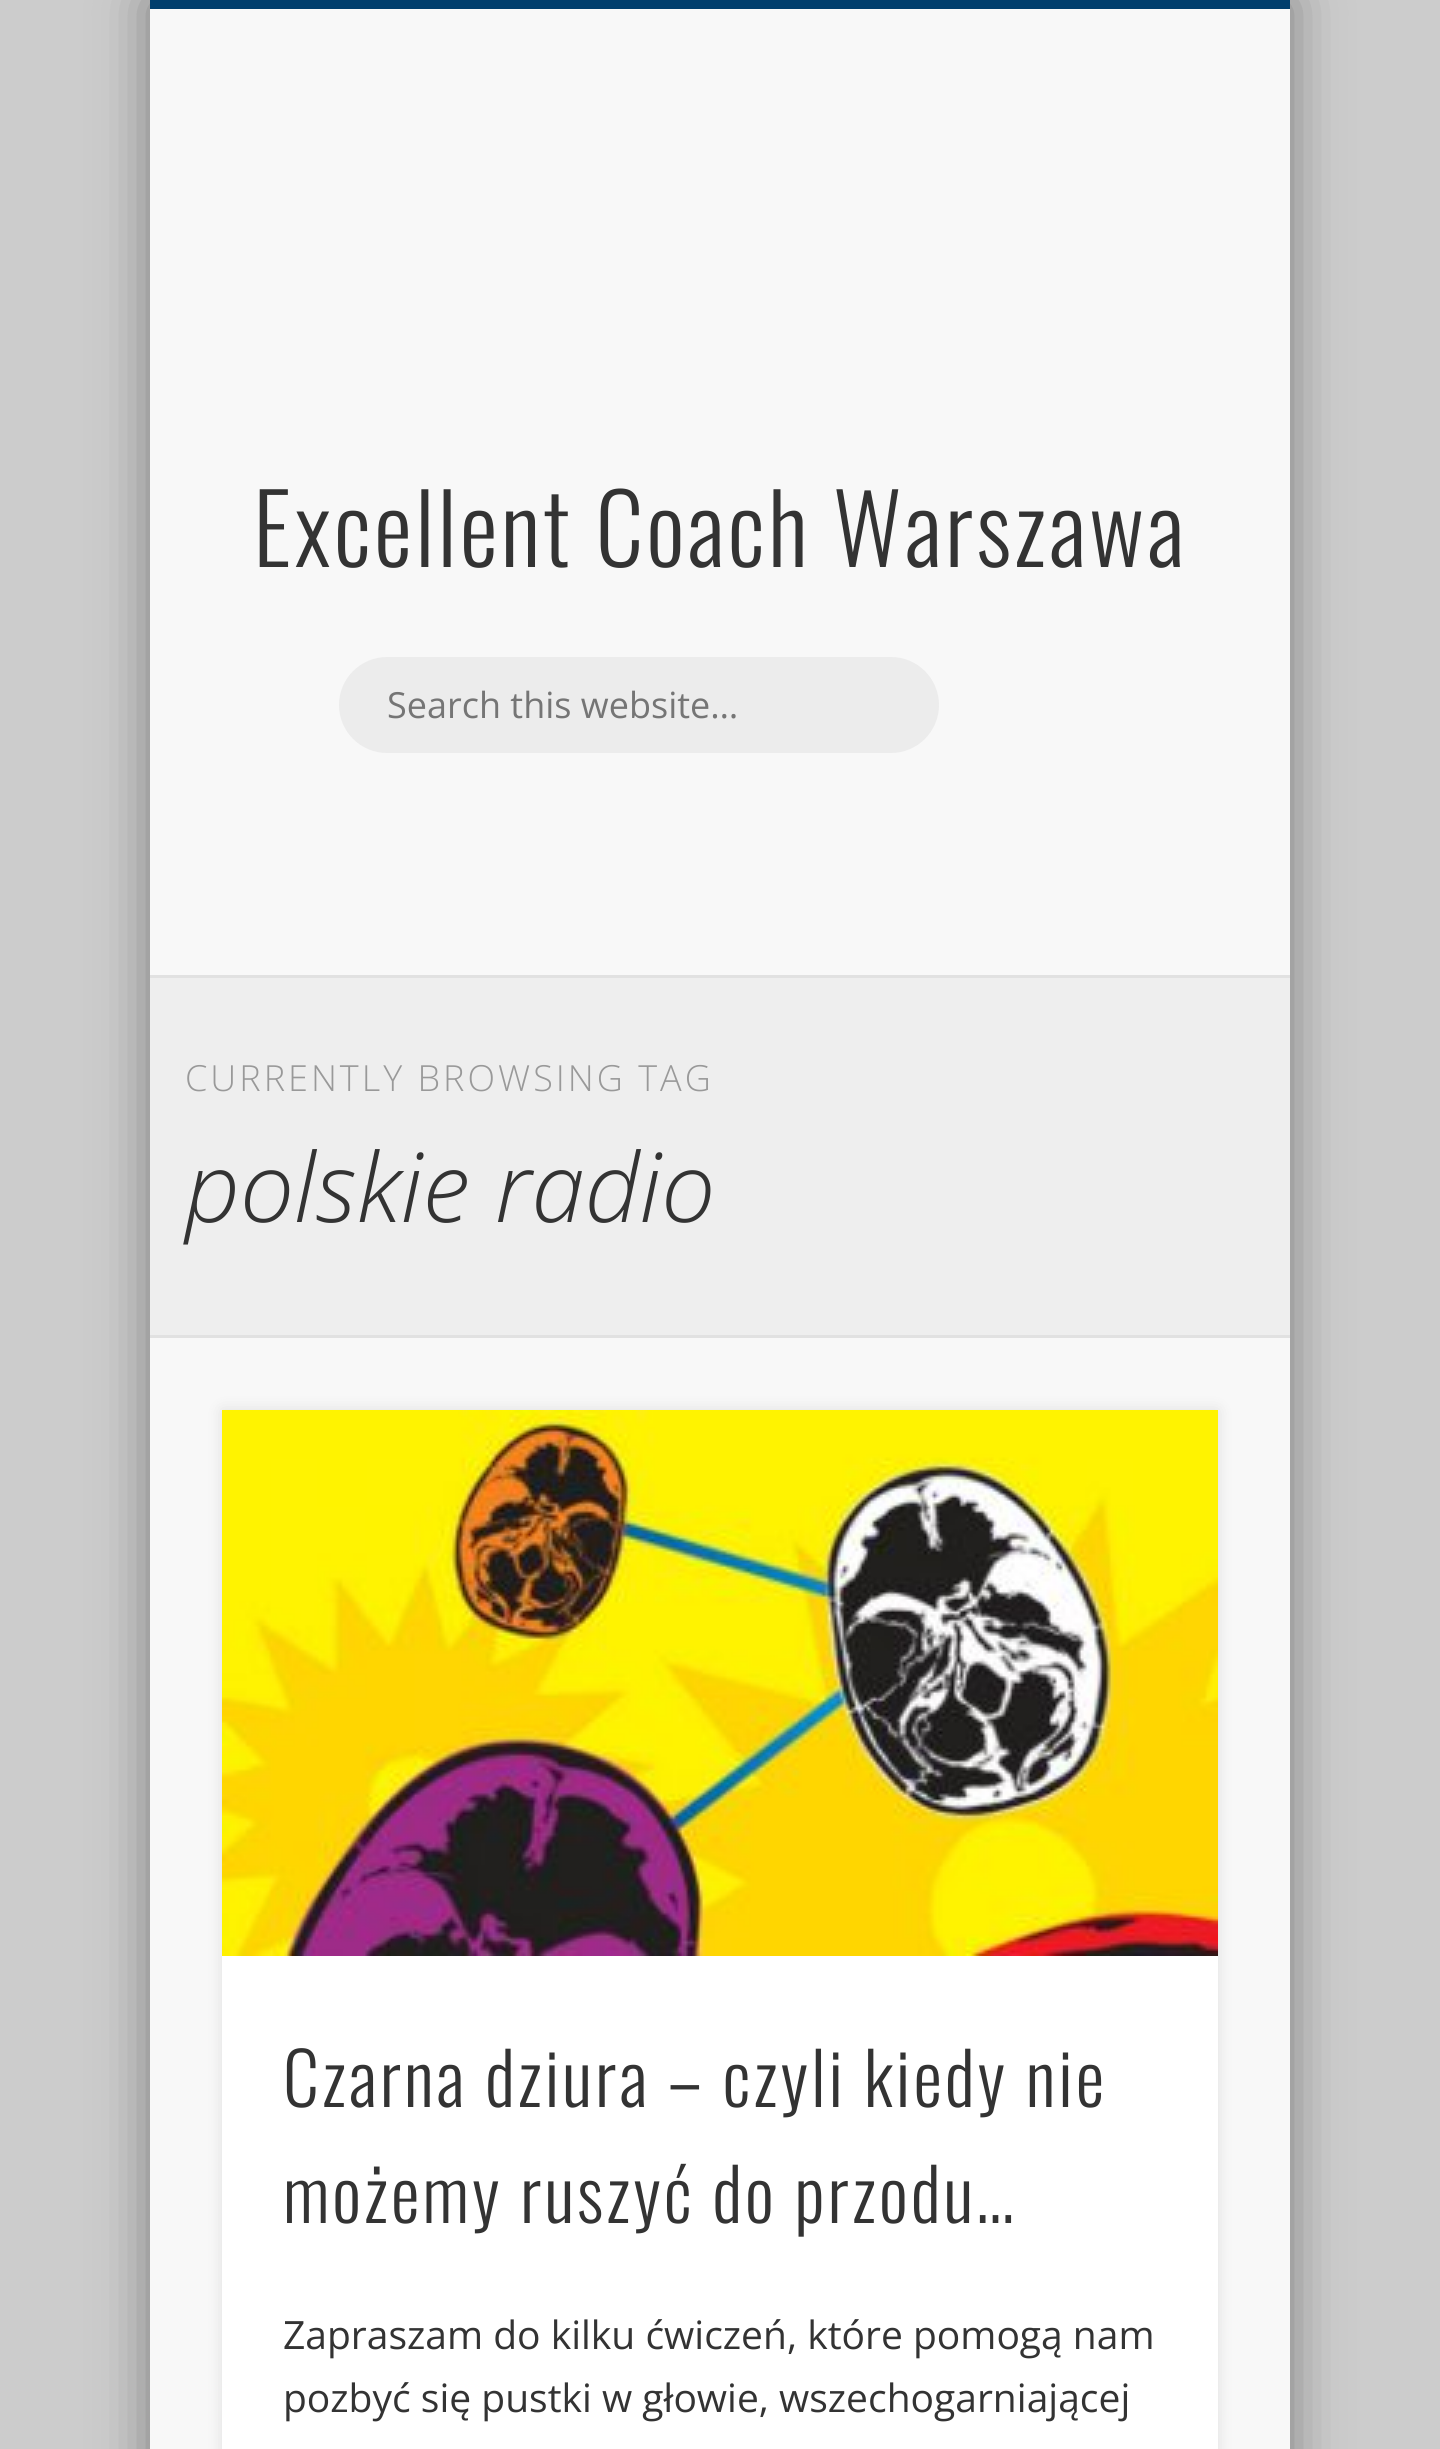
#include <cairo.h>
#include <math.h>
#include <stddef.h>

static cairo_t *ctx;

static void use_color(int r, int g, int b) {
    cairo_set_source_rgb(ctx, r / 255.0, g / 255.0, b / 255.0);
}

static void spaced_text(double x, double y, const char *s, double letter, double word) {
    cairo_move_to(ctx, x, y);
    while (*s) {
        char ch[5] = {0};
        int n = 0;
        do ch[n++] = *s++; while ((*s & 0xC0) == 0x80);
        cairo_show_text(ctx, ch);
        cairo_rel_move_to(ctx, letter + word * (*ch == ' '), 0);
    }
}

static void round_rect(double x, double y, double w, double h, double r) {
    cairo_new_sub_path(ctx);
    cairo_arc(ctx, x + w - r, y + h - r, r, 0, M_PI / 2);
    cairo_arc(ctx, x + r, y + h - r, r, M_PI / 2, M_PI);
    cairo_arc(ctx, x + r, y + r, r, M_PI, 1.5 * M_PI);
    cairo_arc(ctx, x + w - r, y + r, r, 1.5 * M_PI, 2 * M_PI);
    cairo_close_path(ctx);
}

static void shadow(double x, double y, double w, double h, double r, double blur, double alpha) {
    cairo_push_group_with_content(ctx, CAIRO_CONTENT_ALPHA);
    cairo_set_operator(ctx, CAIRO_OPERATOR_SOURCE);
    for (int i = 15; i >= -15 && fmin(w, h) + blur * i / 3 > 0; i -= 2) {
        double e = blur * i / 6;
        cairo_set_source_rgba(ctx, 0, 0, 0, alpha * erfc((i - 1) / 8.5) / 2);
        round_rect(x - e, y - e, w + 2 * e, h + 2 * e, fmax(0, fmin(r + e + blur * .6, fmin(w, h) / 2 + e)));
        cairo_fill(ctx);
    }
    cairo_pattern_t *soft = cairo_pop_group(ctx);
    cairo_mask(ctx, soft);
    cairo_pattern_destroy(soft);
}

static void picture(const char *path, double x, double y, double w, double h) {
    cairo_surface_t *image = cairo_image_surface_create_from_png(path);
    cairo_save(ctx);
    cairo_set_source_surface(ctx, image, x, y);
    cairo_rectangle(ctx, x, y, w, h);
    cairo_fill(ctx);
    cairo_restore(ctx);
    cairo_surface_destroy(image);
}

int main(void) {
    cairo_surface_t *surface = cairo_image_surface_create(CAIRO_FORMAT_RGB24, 1440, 2449);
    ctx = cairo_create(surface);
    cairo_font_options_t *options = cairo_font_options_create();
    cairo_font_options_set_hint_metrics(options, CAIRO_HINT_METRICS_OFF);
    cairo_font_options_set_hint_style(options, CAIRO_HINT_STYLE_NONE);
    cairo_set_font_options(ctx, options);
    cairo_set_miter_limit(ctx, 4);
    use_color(204, 204, 204);
    cairo_paint(ctx);
    use_color(0, 0, 0);
    shadow(150, 0, 1140, 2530, 0, 27, 0.4);
    use_color(248, 248, 248);
    cairo_rectangle(ctx, 150, 9, 1140, 2440);
    cairo_fill(ctx);
    use_color(0, 62, 109);
    cairo_rectangle(ctx, 150, 0, 1140, 9);
    cairo_fill(ctx);
    cairo_select_font_face(ctx, "Oswald Light", CAIRO_FONT_SLANT_NORMAL, CAIRO_FONT_WEIGHT_NORMAL);
    cairo_set_font_size(ctx, 96);
    use_color(51, 51, 51);
    spaced_text(253, 567, "Excellent Coach Warszawa", 3, 0);
    use_color(236, 236, 236);
    round_rect(339, 657, 600, 96, 48);
    cairo_fill(ctx);
    cairo_select_font_face(ctx, "Open Sans", CAIRO_FONT_SLANT_NORMAL, CAIRO_FONT_WEIGHT_NORMAL);
    cairo_set_font_size(ctx, 36);
    use_color(117, 117, 117);
    cairo_move_to(ctx, 387, 718);
    cairo_show_text(ctx, "Search this website…");
    use_color(238, 238, 238);
    cairo_rectangle(ctx, 150, 978, 1140, 357);
    cairo_fill(ctx);
    use_color(225, 225, 225);
    cairo_rectangle(ctx, 150, 975, 1140, 3);
    cairo_fill(ctx);
    cairo_rectangle(ctx, 150, 1335, 1140, 3);
    cairo_fill(ctx);
    cairo_select_font_face(ctx, "Open Sans Light", CAIRO_FONT_SLANT_NORMAL, CAIRO_FONT_WEIGHT_NORMAL);
    use_color(153, 153, 153);
    spaced_text(185, 1091, "CURRENTLY BROWSING TAG", 3, 0);
    cairo_select_font_face(ctx, "Open Sans Light", CAIRO_FONT_SLANT_ITALIC, CAIRO_FONT_WEIGHT_NORMAL);
    cairo_set_font_size(ctx, 96);
    use_color(51, 51, 51);
    cairo_move_to(ctx, 185, 1222);
    cairo_show_text(ctx, "polskie radio");
    use_color(0, 0, 0);
    shadow(222, 1410, 996, 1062, 0, 7.5, 0.1);
    use_color(255, 255, 255);
    cairo_rectangle(ctx, 222, 1956, 996, 493);
    cairo_fill(ctx);
    picture("img1.png", 222, 1410, 996, 546);
    cairo_select_font_face(ctx, "Oswald Light", CAIRO_FONT_SLANT_NORMAL, CAIRO_FONT_WEIGHT_NORMAL);
    cairo_set_font_size(ctx, 72);
    use_color(51, 51, 51);
    spaced_text(283, 2107, "Czarna dziura – czyli kiedy nie", 3, 0);
    spaced_text(283, 2223, "możemy ruszyć do przodu…", 3, 0);
    cairo_select_font_face(ctx, "Open Sans", CAIRO_FONT_SLANT_NORMAL, CAIRO_FONT_WEIGHT_NORMAL);
    cairo_set_font_size(ctx, 39);
    cairo_move_to(ctx, 283, 2349);
    cairo_show_text(ctx, "Zapraszam do kilku ćwiczeń, które pomogą nam");
    cairo_move_to(ctx, 283, 2412);
    cairo_show_text(ctx, "pozbyć się pustki w głowie, wszechogarniającej");
    cairo_surface_write_to_png(surface, "result.png");
    cairo_font_options_destroy(options);
    cairo_destroy(ctx);
    cairo_surface_destroy(surface);
    return 0;
}
